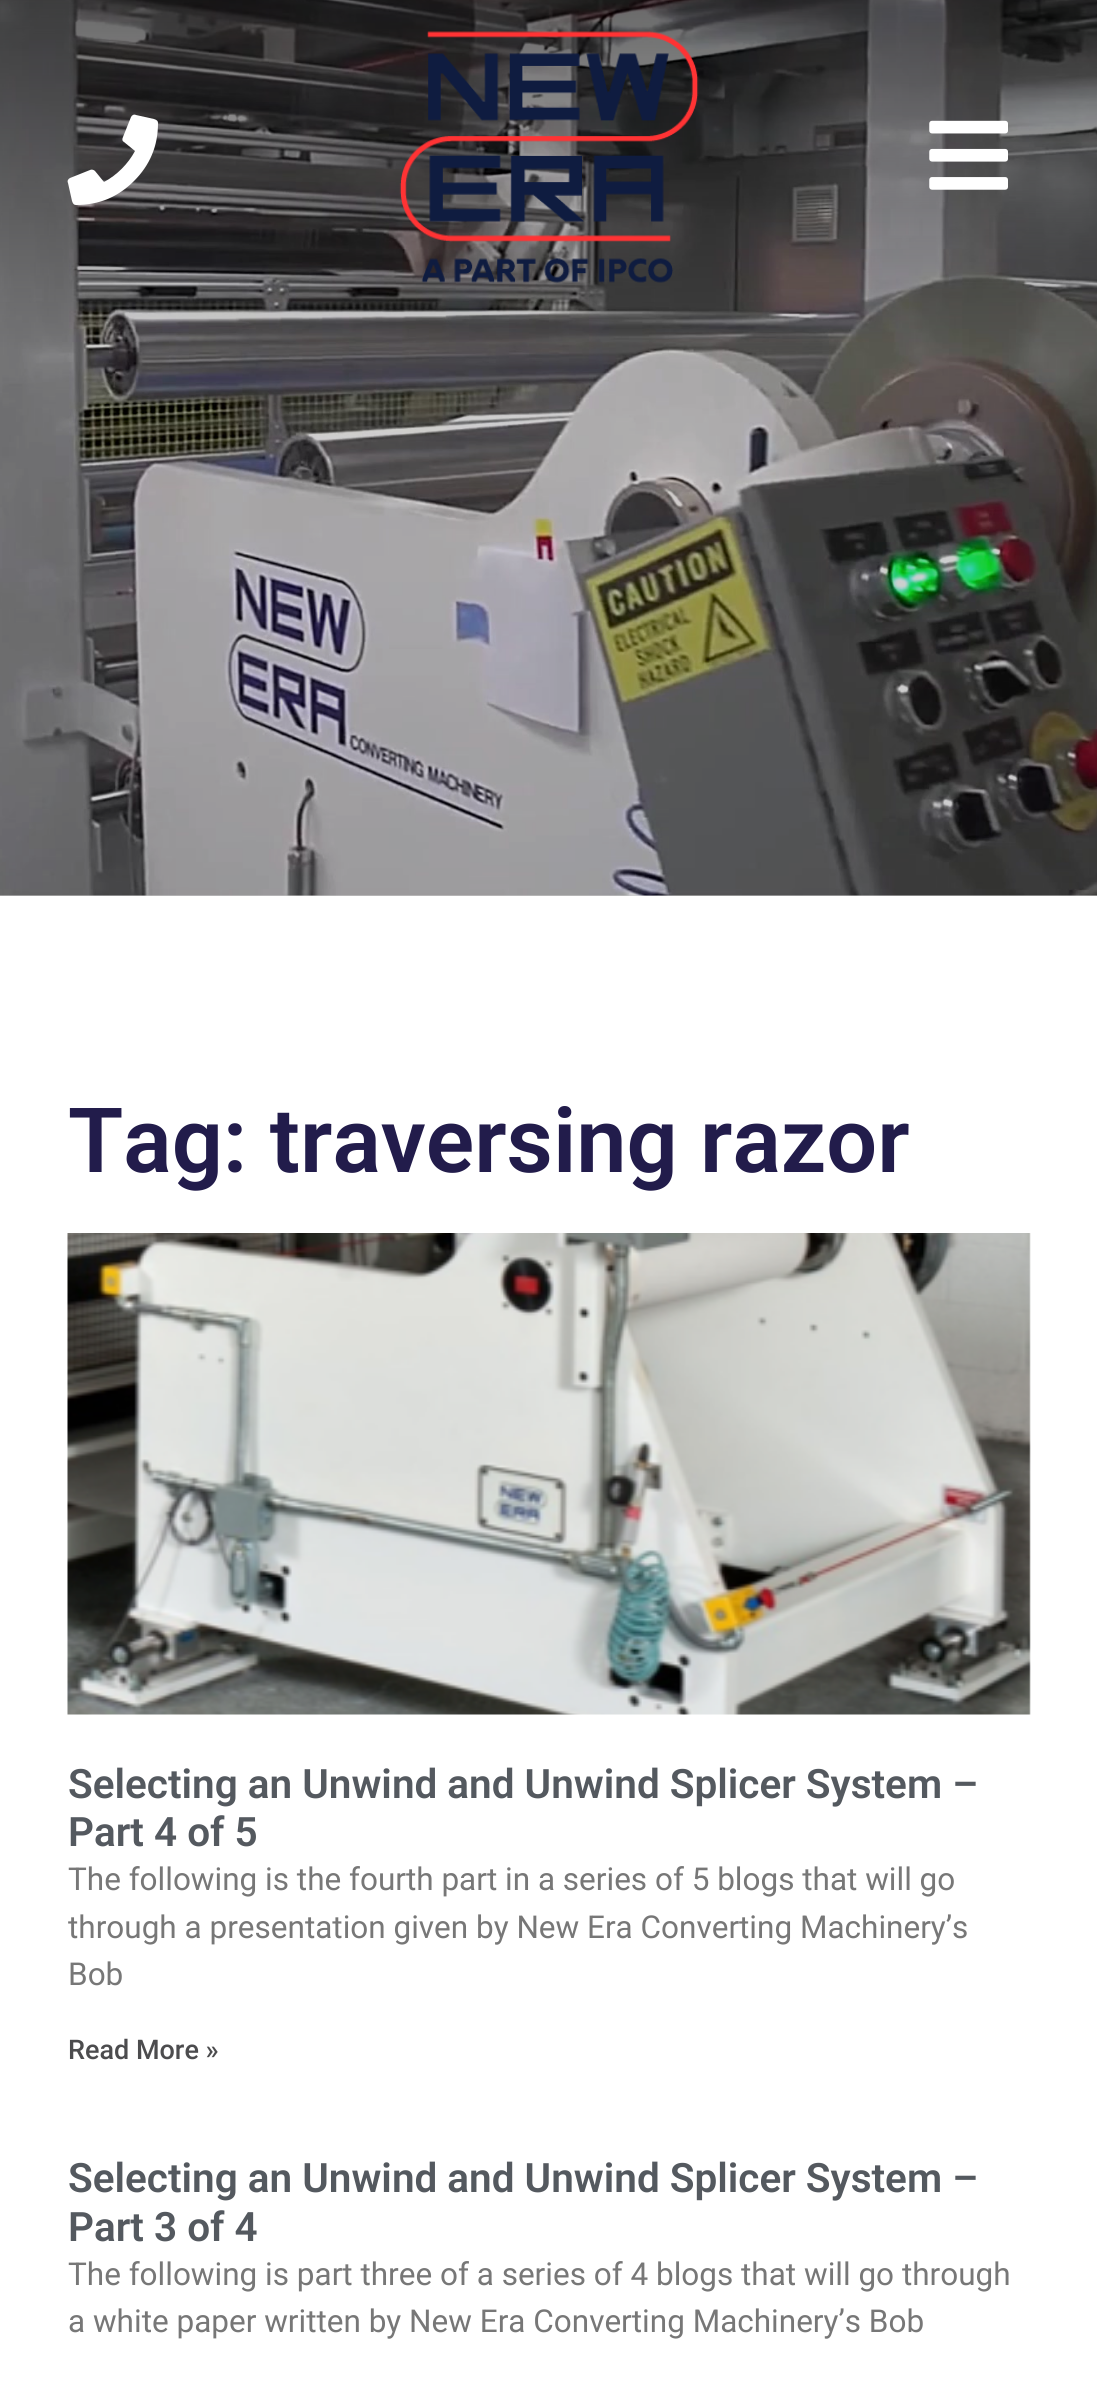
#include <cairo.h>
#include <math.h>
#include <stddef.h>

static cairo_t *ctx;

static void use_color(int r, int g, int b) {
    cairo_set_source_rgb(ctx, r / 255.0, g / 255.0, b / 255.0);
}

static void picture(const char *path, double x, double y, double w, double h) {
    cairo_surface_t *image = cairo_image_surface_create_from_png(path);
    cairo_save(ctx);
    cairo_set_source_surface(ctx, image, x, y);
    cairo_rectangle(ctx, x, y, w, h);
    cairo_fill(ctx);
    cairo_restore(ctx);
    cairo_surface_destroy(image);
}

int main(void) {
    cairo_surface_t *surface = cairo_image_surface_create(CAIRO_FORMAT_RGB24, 1097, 2396);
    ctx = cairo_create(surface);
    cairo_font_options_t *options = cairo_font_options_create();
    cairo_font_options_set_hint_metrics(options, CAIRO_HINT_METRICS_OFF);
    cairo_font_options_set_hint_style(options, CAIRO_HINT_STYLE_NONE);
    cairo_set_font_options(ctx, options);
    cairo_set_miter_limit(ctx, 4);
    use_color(255, 255, 255);
    cairo_paint(ctx);
    use_color(207, 207, 207);
    cairo_rectangle(ctx, 0, 895, 1097, 1);
    cairo_fill(ctx);
    picture("img3.png", 0, 0, 1097, 896);
    use_color(255, 255, 255);
    cairo_new_path(ctx);
    cairo_move_to(ctx, 154, 119);
    cairo_curve_to(ctx, 157, 120, 158, 121, 158, 123);
    cairo_curve_to(ctx, 158, 146, 150, 165, 134, 181);
    cairo_curve_to(ctx, 118, 197, 99, 205, 76, 205);
    cairo_curve_to(ctx, 74, 205, 73, 204, 72, 201);
    cairo_line_to(ctx, 68, 183);
    cairo_curve_to(ctx, 67, 181, 68, 179, 70, 178);
    cairo_line_to(ctx, 90, 170);
    cairo_curve_to(ctx, 92, 169, 94, 170, 95, 171);
    cairo_line_to(ctx, 104, 182);
    cairo_curve_to(ctx, 117, 175, 128, 164, 135, 151);
    cairo_line_to(ctx, 124, 142);
    cairo_curve_to(ctx, 122, 141, 122, 139, 123, 137);
    cairo_line_to(ctx, 131, 117);
    cairo_curve_to(ctx, 132, 115, 134, 114, 136, 115);
    cairo_close_path(ctx);
    cairo_fill(ctx);
    picture("img1.png", 399, 31, 300, 252);
    picture("img2.png", 929, 120, 79, 70);
    cairo_select_font_face(ctx, "Roboto SemiBold", CAIRO_FONT_SLANT_NORMAL, CAIRO_FONT_WEIGHT_NORMAL);
    cairo_set_font_size(ctx, 90);
    use_color(34, 28, 75);
    cairo_move_to(ctx, 68, 1172);
    cairo_show_text(ctx, "Tag: traversing razor");
    picture("img4.png", 67, 1233, 964, 482);
    cairo_set_font_size(ctx, 40.5);
    use_color(84, 89, 95);
    cairo_move_to(ctx, 68, 1798);
    cairo_show_text(ctx, "Selecting an Unwind and Unwind Splicer System –");
    cairo_move_to(ctx, 68, 1846);
    cairo_show_text(ctx, "Part 4 of 5");
    cairo_select_font_face(ctx, "Roboto", CAIRO_FONT_SLANT_NORMAL, CAIRO_FONT_WEIGHT_NORMAL);
    cairo_set_font_size(ctx, 31.5);
    use_color(119, 119, 119);
    cairo_move_to(ctx, 68, 1890);
    cairo_show_text(ctx, "The following is the fourth part in a series of 5 blogs that will go");
    cairo_save(ctx);
    cairo_rectangle(ctx, 68, 1233, 963, 842);
    cairo_clip(ctx);
    cairo_move_to(ctx, 68, 1938);
    cairo_show_text(ctx, "through a presentation given by New Era Converting Machinery’s");
    cairo_restore(ctx);
    cairo_move_to(ctx, 68, 1985);
    cairo_show_text(ctx, "Bob");
    cairo_select_font_face(ctx, "Roboto Medium", CAIRO_FONT_SLANT_NORMAL, CAIRO_FONT_WEIGHT_NORMAL);
    cairo_set_font_size(ctx, 27);
    use_color(76, 76, 78);
    cairo_move_to(ctx, 68, 2059);
    cairo_show_text(ctx, "Read More »");
    cairo_select_font_face(ctx, "Roboto SemiBold", CAIRO_FONT_SLANT_NORMAL, CAIRO_FONT_WEIGHT_NORMAL);
    cairo_set_font_size(ctx, 40.5);
    use_color(84, 89, 95);
    cairo_move_to(ctx, 68, 2192);
    cairo_show_text(ctx, "Selecting an Unwind and Unwind Splicer System –");
    cairo_move_to(ctx, 68, 2241);
    cairo_show_text(ctx, "Part 3 of 4");
    cairo_select_font_face(ctx, "Roboto", CAIRO_FONT_SLANT_NORMAL, CAIRO_FONT_WEIGHT_NORMAL);
    cairo_set_font_size(ctx, 31.5);
    use_color(119, 119, 119);
    cairo_move_to(ctx, 68, 2285);
    cairo_show_text(ctx, "The following is part three of a series of 4 blogs that will go through");
    cairo_move_to(ctx, 68, 2332);
    cairo_show_text(ctx, "a white paper written by New Era Converting Machinery’s Bob");
    cairo_surface_write_to_png(surface, "result.png");
    cairo_font_options_destroy(options);
    cairo_destroy(ctx);
    cairo_surface_destroy(surface);
    return 0;
}
